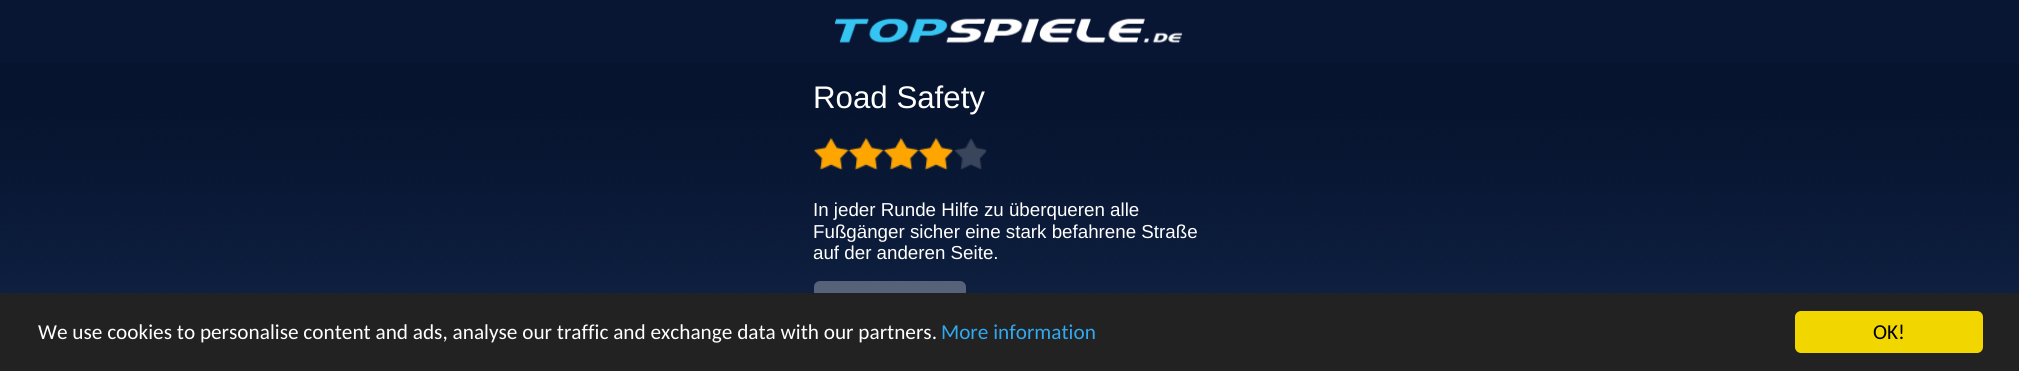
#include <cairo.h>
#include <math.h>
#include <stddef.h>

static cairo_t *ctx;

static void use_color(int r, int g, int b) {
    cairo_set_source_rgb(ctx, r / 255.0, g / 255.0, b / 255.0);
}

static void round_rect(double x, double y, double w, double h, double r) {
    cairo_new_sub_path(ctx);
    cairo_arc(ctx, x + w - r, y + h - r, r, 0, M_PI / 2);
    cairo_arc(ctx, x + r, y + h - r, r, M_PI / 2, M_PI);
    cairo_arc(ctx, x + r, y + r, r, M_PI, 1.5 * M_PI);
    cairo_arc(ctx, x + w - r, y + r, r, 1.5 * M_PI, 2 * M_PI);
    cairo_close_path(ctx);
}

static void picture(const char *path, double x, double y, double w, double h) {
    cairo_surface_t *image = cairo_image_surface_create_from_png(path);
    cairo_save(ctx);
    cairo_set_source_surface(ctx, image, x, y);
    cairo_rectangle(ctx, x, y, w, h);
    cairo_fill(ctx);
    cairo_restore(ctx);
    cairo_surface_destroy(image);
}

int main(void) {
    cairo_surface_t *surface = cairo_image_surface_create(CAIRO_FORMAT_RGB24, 2019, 371);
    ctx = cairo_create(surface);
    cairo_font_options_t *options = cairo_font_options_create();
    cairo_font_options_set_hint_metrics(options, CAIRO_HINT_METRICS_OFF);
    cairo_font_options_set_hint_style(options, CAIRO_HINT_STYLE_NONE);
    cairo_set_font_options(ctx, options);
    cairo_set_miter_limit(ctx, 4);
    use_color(255, 255, 255);
    cairo_paint(ctx);
    picture("img1.png", 0, 63, 2019, 230);
    use_color(8, 22, 52);
    cairo_rectangle(ctx, 0, 0, 2019, 63);
    cairo_fill(ctx);
    picture("img2.png", 835, 18, 348, 25);
    cairo_select_font_face(ctx, "Liberation Sans", CAIRO_FONT_SLANT_NORMAL, CAIRO_FONT_WEIGHT_NORMAL);
    cairo_set_font_size(ctx, 31.25);
    use_color(255, 255, 255);
    cairo_move_to(ctx, 813, 108);
    cairo_show_text(ctx, "Road Safety");
    picture("img3.png", 814, 138, 173, 32);
    picture("img4.png", 813, 137, 140, 33);
    cairo_set_font_size(ctx, 18.75);
    cairo_move_to(ctx, 813, 216);
    cairo_show_text(ctx, "In jeder Runde Hilfe zu überqueren alle");
    cairo_move_to(ctx, 813, 238);
    cairo_show_text(ctx, "Fußgänger sicher eine stark befahrene Straße");
    cairo_move_to(ctx, 813, 259);
    cairo_show_text(ctx, "auf der anderen Seite.");
    cairo_set_source_rgba(ctx, 1, 1, 1, 0.3);
    round_rect(814, 281, 152, 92, 6);
    cairo_fill(ctx);
    use_color(34, 34, 34);
    cairo_rectangle(ctx, 0, 293, 2019, 78);
    cairo_fill(ctx);
    cairo_select_font_face(ctx, "Carlito", CAIRO_FONT_SLANT_NORMAL, CAIRO_FONT_WEIGHT_NORMAL);
    cairo_set_font_size(ctx, 21.25);
    use_color(255, 255, 255);
    cairo_move_to(ctx, 38, 339);
    cairo_show_text(ctx, "We use cookies to personalise content and ads, analyse our traffic and exchange data with our partners.");
    use_color(49, 168, 240);
    cairo_move_to(ctx, 941, 339);
    cairo_show_text(ctx, "More information");
    use_color(241, 214, 0);
    round_rect(1795, 311, 188, 42, 6);
    cairo_fill(ctx);
    use_color(0, 0, 0);
    cairo_move_to(ctx, 1873, 339);
    cairo_show_text(ctx, "OK!");
    cairo_surface_write_to_png(surface, "result.png");
    cairo_font_options_destroy(options);
    cairo_destroy(ctx);
    cairo_surface_destroy(surface);
    return 0;
}
